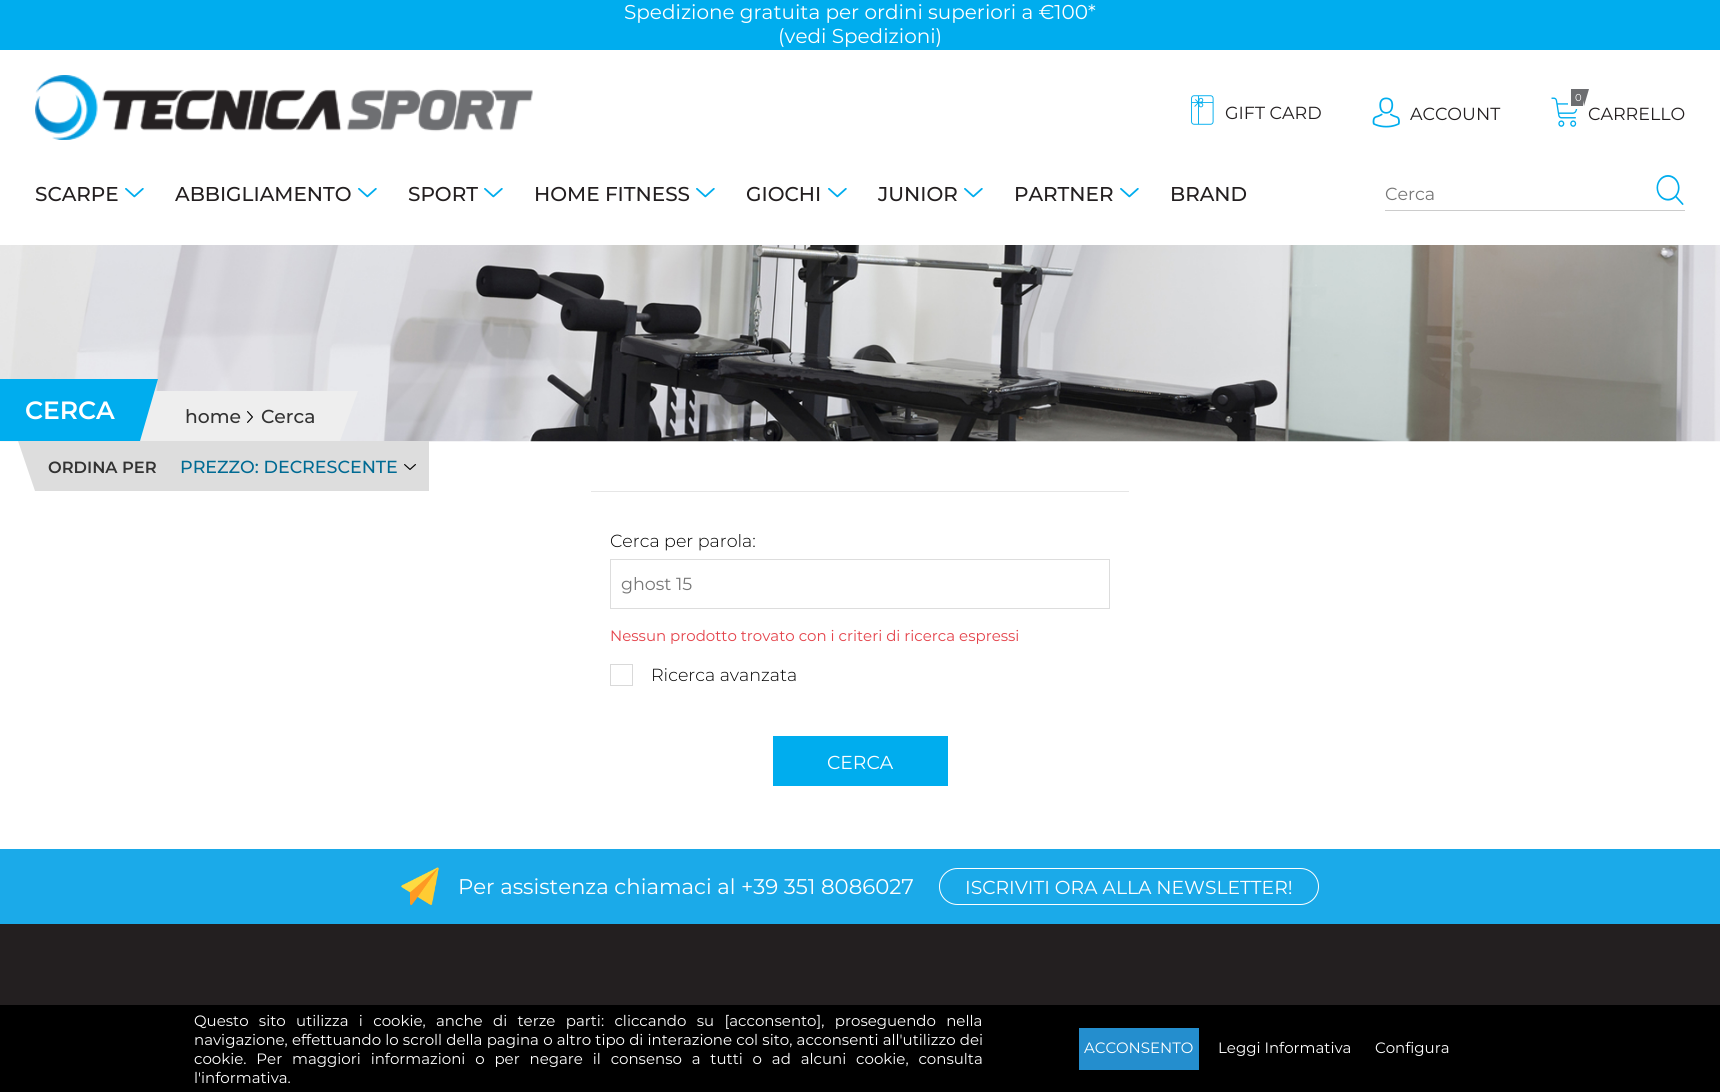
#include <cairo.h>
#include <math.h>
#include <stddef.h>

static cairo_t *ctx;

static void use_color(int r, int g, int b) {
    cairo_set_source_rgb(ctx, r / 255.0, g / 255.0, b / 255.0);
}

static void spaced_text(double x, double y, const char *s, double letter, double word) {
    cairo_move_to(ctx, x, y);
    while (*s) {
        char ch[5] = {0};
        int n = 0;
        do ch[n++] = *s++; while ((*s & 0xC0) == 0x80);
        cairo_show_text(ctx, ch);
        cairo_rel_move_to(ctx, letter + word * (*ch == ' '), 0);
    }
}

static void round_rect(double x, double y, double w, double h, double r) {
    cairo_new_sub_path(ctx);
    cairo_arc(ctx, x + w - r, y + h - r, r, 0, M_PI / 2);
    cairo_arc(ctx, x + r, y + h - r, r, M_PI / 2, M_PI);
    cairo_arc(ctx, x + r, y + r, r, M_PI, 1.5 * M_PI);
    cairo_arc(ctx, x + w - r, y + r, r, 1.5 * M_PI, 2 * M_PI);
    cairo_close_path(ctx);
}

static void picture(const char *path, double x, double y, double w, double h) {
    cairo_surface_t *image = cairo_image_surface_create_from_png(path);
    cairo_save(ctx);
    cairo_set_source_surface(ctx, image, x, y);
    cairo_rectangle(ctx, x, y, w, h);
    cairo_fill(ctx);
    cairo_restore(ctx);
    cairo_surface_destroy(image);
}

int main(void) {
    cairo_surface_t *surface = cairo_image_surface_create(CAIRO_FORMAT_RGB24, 1720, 1092);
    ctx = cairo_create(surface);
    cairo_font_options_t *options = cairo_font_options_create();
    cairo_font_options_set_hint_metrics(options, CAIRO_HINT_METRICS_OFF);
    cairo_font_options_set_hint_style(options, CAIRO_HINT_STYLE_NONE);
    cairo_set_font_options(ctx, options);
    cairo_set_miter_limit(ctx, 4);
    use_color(255, 255, 255);
    cairo_paint(ctx);
    use_color(0, 173, 238);
    cairo_rectangle(ctx, 0, 0, 1720, 50);
    cairo_fill(ctx);
    cairo_select_font_face(ctx, "Montserrat", CAIRO_FONT_SLANT_NORMAL, CAIRO_FONT_WEIGHT_NORMAL);
    cairo_set_font_size(ctx, 20);
    use_color(255, 255, 255);
    cairo_move_to(ctx, 624, 19);
    cairo_show_text(ctx, "Spedizione gratuita per ordini superiori a €100*");
    cairo_move_to(ctx, 778, 43);
    cairo_show_text(ctx, "(vedi Spedizioni)");
    picture("img1.png", 35, 75, 498, 65);
    picture("img2.png", 1191, 95, 23, 30);
    cairo_set_font_size(ctx, 17.5);
    use_color(35, 31, 32);
    cairo_move_to(ctx, 1225, 119);
    cairo_show_text(ctx, "GIFT CARD");
    picture("img3.png", 1372, 97, 28, 31);
    cairo_move_to(ctx, 1410, 120);
    cairo_show_text(ctx, "ACCOUNT");
    picture("img4.png", 1551, 97, 27, 30);
    use_color(109, 110, 113);
    cairo_rectangle(ctx, 1569.5, 87.5, 15, 20);
    cairo_fill_preserve(ctx);
    use_color(255, 255, 255);
    cairo_set_line_width(ctx, 3);
    cairo_stroke(ctx);
    cairo_set_font_size(ctx, 10);
    cairo_move_to(ctx, 1575, 101);
    cairo_show_text(ctx, "0");
    use_color(109, 110, 113);
    cairo_new_path(ctx);
    cairo_move_to(ctx, 1581, 89);
    cairo_line_to(ctx, 1589, 89);
    cairo_line_to(ctx, 1584, 106);
    cairo_close_path(ctx);
    cairo_fill(ctx);
    cairo_set_font_size(ctx, 17.5);
    use_color(35, 31, 32);
    cairo_move_to(ctx, 1588, 120);
    cairo_show_text(ctx, "CARRELLO");
    cairo_select_font_face(ctx, "Montserrat Medium", CAIRO_FONT_SLANT_NORMAL, CAIRO_FONT_WEIGHT_NORMAL);
    cairo_set_font_size(ctx, 20);
    cairo_move_to(ctx, 35, 201);
    cairo_show_text(ctx, "SCARPE");
    cairo_select_font_face(ctx, "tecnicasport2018", CAIRO_FONT_SLANT_NORMAL, CAIRO_FONT_WEIGHT_NORMAL);
    cairo_set_font_size(ctx, 18.75);
    use_color(0, 173, 238);
    cairo_move_to(ctx, 125, 202);
    cairo_show_text(ctx, "\\");
    cairo_select_font_face(ctx, "Montserrat Medium", CAIRO_FONT_SLANT_NORMAL, CAIRO_FONT_WEIGHT_NORMAL);
    cairo_set_font_size(ctx, 20);
    use_color(35, 31, 32);
    cairo_move_to(ctx, 175, 201);
    cairo_show_text(ctx, "ABBIGLIAMENTO");
    cairo_select_font_face(ctx, "tecnicasport2018", CAIRO_FONT_SLANT_NORMAL, CAIRO_FONT_WEIGHT_NORMAL);
    cairo_set_font_size(ctx, 18.75);
    use_color(0, 173, 238);
    cairo_move_to(ctx, 358, 202);
    cairo_show_text(ctx, "\\");
    cairo_select_font_face(ctx, "Montserrat Medium", CAIRO_FONT_SLANT_NORMAL, CAIRO_FONT_WEIGHT_NORMAL);
    cairo_set_font_size(ctx, 20);
    use_color(35, 31, 32);
    cairo_move_to(ctx, 408, 201);
    cairo_show_text(ctx, "SPORT");
    cairo_select_font_face(ctx, "tecnicasport2018", CAIRO_FONT_SLANT_NORMAL, CAIRO_FONT_WEIGHT_NORMAL);
    cairo_set_font_size(ctx, 18.75);
    use_color(0, 173, 238);
    cairo_move_to(ctx, 484, 202);
    cairo_show_text(ctx, "\\");
    cairo_select_font_face(ctx, "Montserrat Medium", CAIRO_FONT_SLANT_NORMAL, CAIRO_FONT_WEIGHT_NORMAL);
    cairo_set_font_size(ctx, 20);
    use_color(35, 31, 32);
    cairo_move_to(ctx, 534, 201);
    cairo_show_text(ctx, "HOME FITNESS");
    cairo_select_font_face(ctx, "tecnicasport2018", CAIRO_FONT_SLANT_NORMAL, CAIRO_FONT_WEIGHT_NORMAL);
    cairo_set_font_size(ctx, 18.75);
    use_color(0, 173, 238);
    cairo_move_to(ctx, 696, 202);
    cairo_show_text(ctx, "\\");
    cairo_select_font_face(ctx, "Montserrat Medium", CAIRO_FONT_SLANT_NORMAL, CAIRO_FONT_WEIGHT_NORMAL);
    cairo_set_font_size(ctx, 20);
    use_color(35, 31, 32);
    cairo_move_to(ctx, 746, 201);
    cairo_show_text(ctx, "GIOCHI");
    cairo_select_font_face(ctx, "tecnicasport2018", CAIRO_FONT_SLANT_NORMAL, CAIRO_FONT_WEIGHT_NORMAL);
    cairo_set_font_size(ctx, 18.75);
    use_color(0, 173, 238);
    cairo_move_to(ctx, 828, 202);
    cairo_show_text(ctx, "\\");
    cairo_select_font_face(ctx, "Montserrat Medium", CAIRO_FONT_SLANT_NORMAL, CAIRO_FONT_WEIGHT_NORMAL);
    cairo_set_font_size(ctx, 20);
    use_color(35, 31, 32);
    cairo_move_to(ctx, 878, 201);
    cairo_show_text(ctx, "JUNIOR");
    cairo_select_font_face(ctx, "tecnicasport2018", CAIRO_FONT_SLANT_NORMAL, CAIRO_FONT_WEIGHT_NORMAL);
    cairo_set_font_size(ctx, 18.75);
    use_color(0, 173, 238);
    cairo_move_to(ctx, 964, 202);
    cairo_show_text(ctx, "\\");
    cairo_select_font_face(ctx, "Montserrat Medium", CAIRO_FONT_SLANT_NORMAL, CAIRO_FONT_WEIGHT_NORMAL);
    cairo_set_font_size(ctx, 20);
    use_color(35, 31, 32);
    cairo_move_to(ctx, 1014, 201);
    cairo_show_text(ctx, "PARTNER");
    cairo_select_font_face(ctx, "tecnicasport2018", CAIRO_FONT_SLANT_NORMAL, CAIRO_FONT_WEIGHT_NORMAL);
    cairo_set_font_size(ctx, 18.75);
    use_color(0, 173, 238);
    cairo_move_to(ctx, 1120, 202);
    cairo_show_text(ctx, "\\");
    cairo_select_font_face(ctx, "Montserrat Medium", CAIRO_FONT_SLANT_NORMAL, CAIRO_FONT_WEIGHT_NORMAL);
    cairo_set_font_size(ctx, 20);
    use_color(35, 31, 32);
    cairo_move_to(ctx, 1170, 201);
    cairo_show_text(ctx, "BRAND");
    use_color(204, 204, 204);
    cairo_rectangle(ctx, 1385, 210, 300, 1);
    cairo_fill(ctx);
    cairo_select_font_face(ctx, "Montserrat", CAIRO_FONT_SLANT_NORMAL, CAIRO_FONT_WEIGHT_NORMAL);
    cairo_set_font_size(ctx, 17.5);
    use_color(119, 119, 119);
    cairo_move_to(ctx, 1385, 200);
    cairo_show_text(ctx, "Cerca");
    picture("img5.png", 1656, 175, 28, 30);
    picture("img6.png", 0, 245, 1720, 197);
    use_color(0, 173, 238);
    cairo_rectangle(ctx, 0, 379, 140, 62);
    cairo_fill(ctx);
    cairo_select_font_face(ctx, "Montserrat SemiBold", CAIRO_FONT_SLANT_NORMAL, CAIRO_FONT_WEIGHT_NORMAL);
    cairo_set_font_size(ctx, 25);
    use_color(255, 255, 255);
    cairo_move_to(ctx, 25, 419);
    cairo_show_text(ctx, "CERCA");
    use_color(238, 238, 238);
    cairo_rectangle(ctx, 140, 391, 200, 50);
    cairo_fill(ctx);
    use_color(0, 173, 238);
    cairo_new_path(ctx);
    cairo_move_to(ctx, 140, 379);
    cairo_line_to(ctx, 158, 379);
    cairo_line_to(ctx, 140, 441);
    cairo_close_path(ctx);
    cairo_fill(ctx);
    cairo_select_font_face(ctx, "Montserrat Medium", CAIRO_FONT_SLANT_NORMAL, CAIRO_FONT_WEIGHT_NORMAL);
    cairo_set_font_size(ctx, 18.75);
    use_color(51, 51, 51);
    cairo_move_to(ctx, 185, 423);
    cairo_show_text(ctx, "home");
    cairo_select_font_face(ctx, "tecnicasport2018", CAIRO_FONT_SLANT_NORMAL, CAIRO_FONT_WEIGHT_NORMAL);
    cairo_set_font_size(ctx, 12);
    use_color(0, 0, 0);
    cairo_move_to(ctx, 244, 423);
    cairo_show_text(ctx, ">");
    cairo_select_font_face(ctx, "Montserrat Medium", CAIRO_FONT_SLANT_NORMAL, CAIRO_FONT_WEIGHT_NORMAL);
    cairo_set_font_size(ctx, 18.75);
    use_color(51, 51, 51);
    cairo_move_to(ctx, 261, 423);
    cairo_show_text(ctx, "Cerca");
    use_color(238, 238, 238);
    cairo_new_path(ctx);
    cairo_move_to(ctx, 340, 391);
    cairo_line_to(ctx, 358, 391);
    cairo_line_to(ctx, 340, 441);
    cairo_close_path(ctx);
    cairo_fill(ctx);
    use_color(221, 221, 221);
    cairo_rectangle(ctx, 35, 441, 394, 50);
    cairo_fill(ctx);
    cairo_new_path(ctx);
    cairo_move_to(ctx, 18, 441);
    cairo_line_to(ctx, 35, 441);
    cairo_line_to(ctx, 35, 491);
    cairo_close_path(ctx);
    cairo_fill(ctx);
    cairo_select_font_face(ctx, "Montserrat SemiBold", CAIRO_FONT_SLANT_NORMAL, CAIRO_FONT_WEIGHT_NORMAL);
    cairo_set_font_size(ctx, 16.25);
    use_color(51, 51, 51);
    cairo_move_to(ctx, 48, 473);
    cairo_show_text(ctx, "ORDINA PER");
    cairo_select_font_face(ctx, "Montserrat Medium", CAIRO_FONT_SLANT_NORMAL, CAIRO_FONT_WEIGHT_NORMAL);
    cairo_set_font_size(ctx, 17.5);
    use_color(0, 106, 147);
    cairo_move_to(ctx, 180, 473);
    cairo_show_text(ctx, "PREZZO: DECRESCENTE");
    cairo_select_font_face(ctx, "tecnicasport2018", CAIRO_FONT_SLANT_NORMAL, CAIRO_FONT_WEIGHT_NORMAL);
    cairo_set_font_size(ctx, 12);
    use_color(0, 0, 0);
    cairo_move_to(ctx, 404, 473);
    cairo_show_text(ctx, "\\");
    use_color(230, 230, 230);
    cairo_rectangle(ctx, 591, 491, 538, 1);
    cairo_fill(ctx);
    cairo_select_font_face(ctx, "Montserrat Light", CAIRO_FONT_SLANT_NORMAL, CAIRO_FONT_WEIGHT_NORMAL);
    cairo_set_font_size(ctx, 17.5);
    use_color(0, 0, 0);
    cairo_move_to(ctx, 610, 547);
    cairo_show_text(ctx, "Cerca per parola:");
    cairo_rectangle(ctx, 610.5, 559.5, 499, 49);
    use_color(221, 221, 221);
    cairo_set_line_width(ctx, 1);
    cairo_stroke(ctx);
    cairo_select_font_face(ctx, "Montserrat", CAIRO_FONT_SLANT_NORMAL, CAIRO_FONT_WEIGHT_NORMAL);
    use_color(119, 119, 119);
    cairo_move_to(ctx, 621, 590);
    cairo_show_text(ctx, "ghost 15");
    cairo_set_font_size(ctx, 15);
    use_color(228, 67, 75);
    cairo_move_to(ctx, 610, 641);
    cairo_show_text(ctx, "Nessun prodotto trovato con i criteri di ricerca espressi");
    cairo_rectangle(ctx, 610.5, 664.5, 22, 21);
    use_color(217, 217, 217);
    cairo_stroke(ctx);
    cairo_select_font_face(ctx, "Montserrat Light", CAIRO_FONT_SLANT_NORMAL, CAIRO_FONT_WEIGHT_NORMAL);
    cairo_set_font_size(ctx, 17.5);
    use_color(0, 0, 0);
    cairo_move_to(ctx, 651, 681);
    cairo_show_text(ctx, "Ricerca avanzata");
    use_color(0, 173, 238);
    cairo_rectangle(ctx, 773, 736, 175, 50);
    cairo_fill(ctx);
    cairo_select_font_face(ctx, "Montserrat", CAIRO_FONT_SLANT_NORMAL, CAIRO_FONT_WEIGHT_NORMAL);
    cairo_set_font_size(ctx, 18.75);
    use_color(255, 255, 255);
    cairo_move_to(ctx, 827, 769);
    cairo_show_text(ctx, "CERCA");
    use_color(27, 170, 233);
    cairo_rectangle(ctx, 0, 849, 1720, 75);
    cairo_fill(ctx);
    picture("img7.png", 401, 867, 38, 38);
    cairo_set_font_size(ctx, 21.25);
    use_color(255, 255, 255);
    cairo_move_to(ctx, 458, 894);
    cairo_show_text(ctx, "Per assistenza chiamaci al +39 351 8086027");
    round_rect(939.5, 868.5, 379, 36, 18);
    cairo_stroke(ctx);
    cairo_set_font_size(ctx, 18.75);
    cairo_move_to(ctx, 965, 894);
    cairo_show_text(ctx, "ISCRIVITI ORA ALLA NEWSLETTER!");
    use_color(35, 31, 32);
    cairo_rectangle(ctx, 0, 924, 1720, 81);
    cairo_fill(ctx);
    use_color(0, 0, 0);
    cairo_rectangle(ctx, 0, 1005, 1720, 87);
    cairo_fill(ctx);
    cairo_set_font_size(ctx, 15);
    use_color(255, 255, 255);
    spaced_text(194, 1026, "Questo sito utilizza i cookie, anche di terze parti: cliccando su [acconsento], proseguendo nella", 0, 6.4);
    spaced_text(194, 1045, "navigazione, effettuando lo scroll della pagina o altro tipo di interazione col sito, acconsenti all'utilizzo dei", 0, 0.25);
    spaced_text(194, 1064, "cookie. Per maggiori informazioni o per negare il consenso a tutti o ad alcuni cookie, consulta", 0, 5.9);
    cairo_move_to(ctx, 194, 1083);
    cairo_show_text(ctx, "l'informativa.");
    use_color(36, 142, 206);
    cairo_rectangle(ctx, 1079, 1028, 120, 42);
    cairo_fill(ctx);
    use_color(255, 255, 255);
    cairo_move_to(ctx, 1084, 1053);
    cairo_show_text(ctx, "ACCONSENTO");
    cairo_move_to(ctx, 1218, 1053);
    cairo_show_text(ctx, "Leggi Informativa");
    cairo_move_to(ctx, 1375, 1053);
    cairo_show_text(ctx, "Configura");
    cairo_surface_write_to_png(surface, "result.png");
    cairo_font_options_destroy(options);
    cairo_destroy(ctx);
    cairo_surface_destroy(surface);
    return 0;
}
